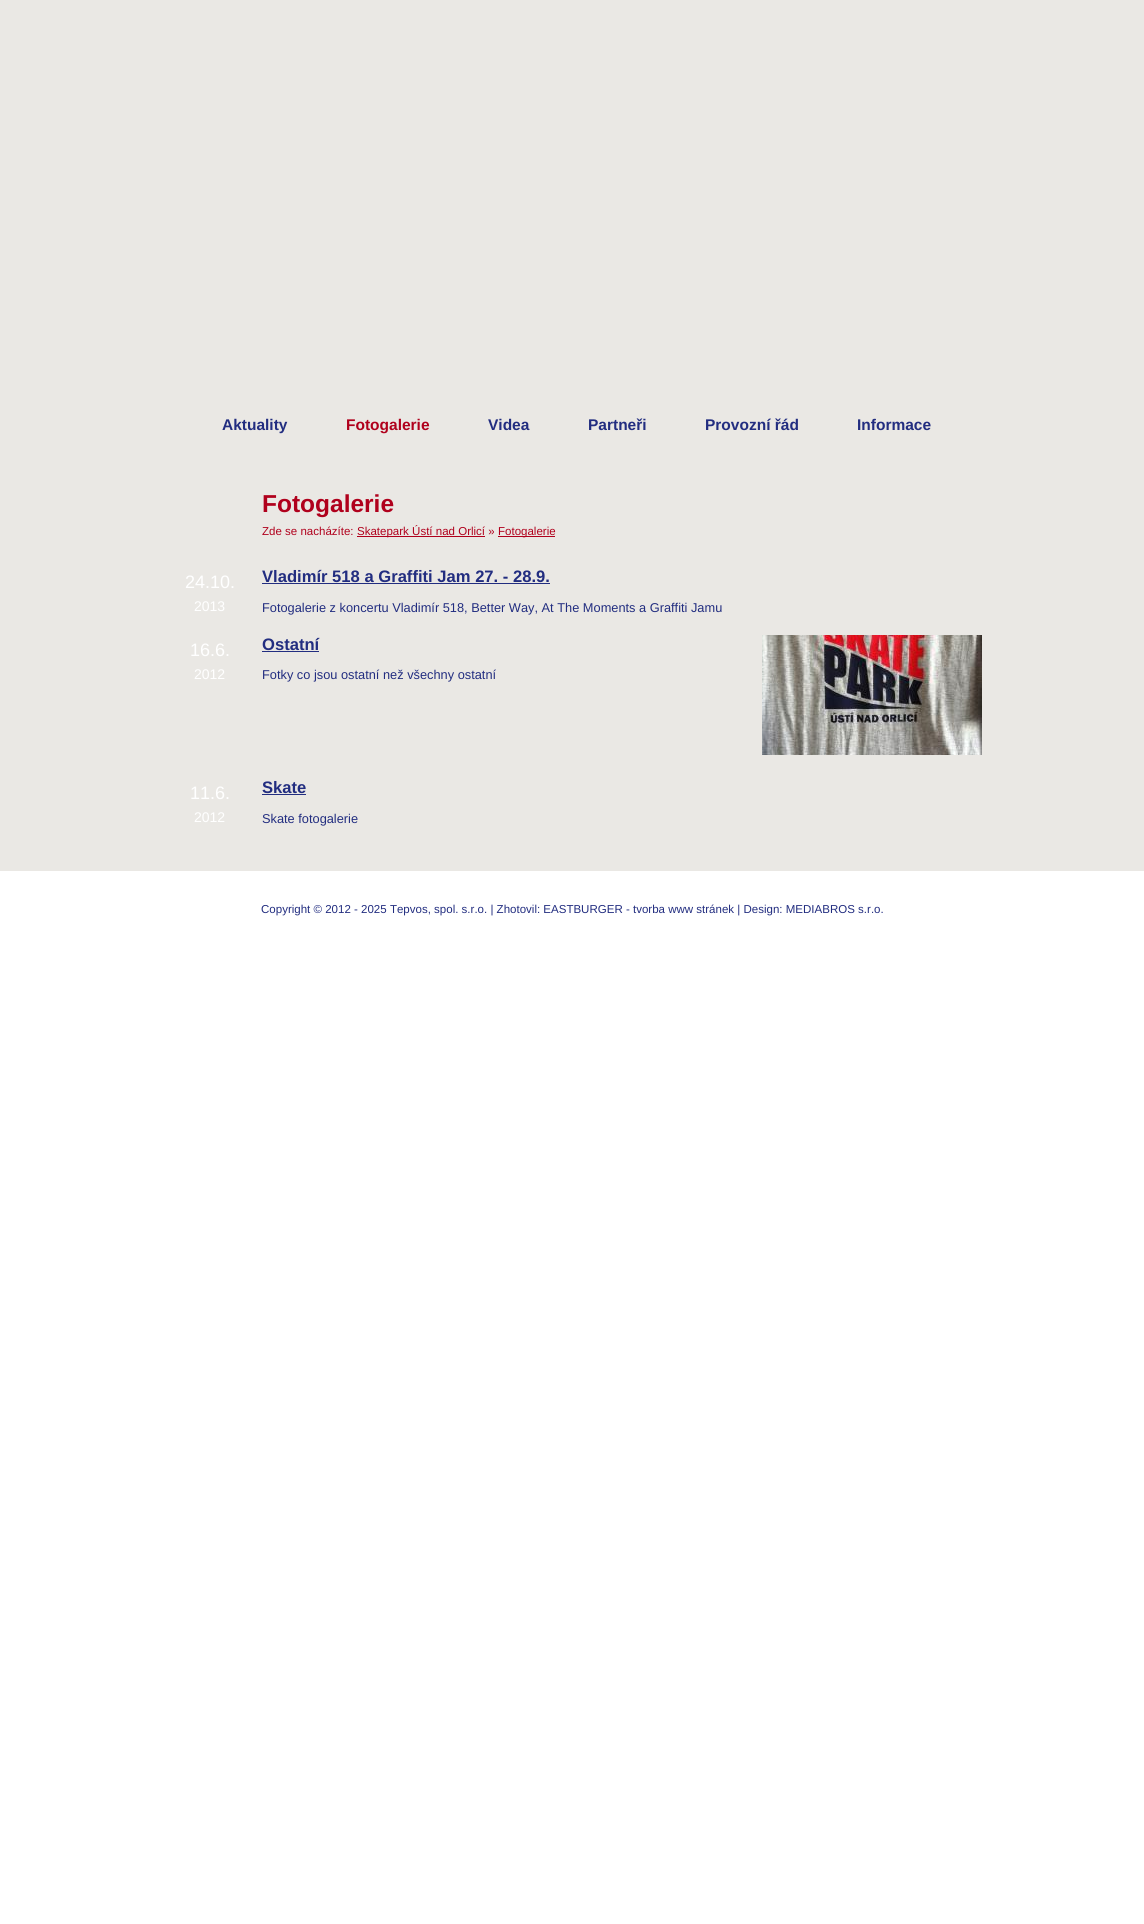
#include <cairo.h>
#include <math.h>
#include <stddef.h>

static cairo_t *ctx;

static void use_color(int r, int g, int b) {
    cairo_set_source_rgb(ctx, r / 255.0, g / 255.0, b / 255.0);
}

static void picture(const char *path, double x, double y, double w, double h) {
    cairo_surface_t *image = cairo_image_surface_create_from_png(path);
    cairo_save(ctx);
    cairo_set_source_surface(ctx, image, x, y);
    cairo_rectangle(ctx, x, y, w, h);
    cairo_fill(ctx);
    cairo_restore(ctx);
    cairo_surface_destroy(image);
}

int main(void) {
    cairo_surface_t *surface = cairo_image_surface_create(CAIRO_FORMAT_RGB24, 1144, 1924);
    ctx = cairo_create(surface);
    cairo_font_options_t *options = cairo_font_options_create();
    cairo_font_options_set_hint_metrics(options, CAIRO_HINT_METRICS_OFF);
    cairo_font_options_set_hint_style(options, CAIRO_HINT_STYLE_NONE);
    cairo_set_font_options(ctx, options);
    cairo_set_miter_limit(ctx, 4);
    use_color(255, 255, 255);
    cairo_paint(ctx);
    use_color(234, 232, 228);
    cairo_rectangle(ctx, 0, 0, 1144, 871);
    cairo_fill(ctx);
    cairo_select_font_face(ctx, "Liberation Sans", CAIRO_FONT_SLANT_NORMAL, CAIRO_FONT_WEIGHT_BOLD);
    cairo_set_font_size(ctx, 15.5);
    use_color(34, 45, 128);
    cairo_move_to(ctx, 222, 430);
    cairo_show_text(ctx, "Aktuality");
    use_color(176, 0, 28);
    cairo_move_to(ctx, 346, 430);
    cairo_show_text(ctx, "Fotogalerie");
    use_color(34, 45, 128);
    cairo_move_to(ctx, 488, 430);
    cairo_show_text(ctx, "Videa");
    cairo_move_to(ctx, 588, 430);
    cairo_show_text(ctx, "Partneři");
    cairo_move_to(ctx, 705, 430);
    cairo_show_text(ctx, "Provozní řád");
    cairo_move_to(ctx, 857, 430);
    cairo_show_text(ctx, "Informace");
    cairo_set_font_size(ctx, 24.5);
    use_color(176, 0, 28);
    cairo_move_to(ctx, 262, 512);
    cairo_show_text(ctx, "Fotogalerie");
    cairo_select_font_face(ctx, "Liberation Sans", CAIRO_FONT_SLANT_NORMAL, CAIRO_FONT_WEIGHT_NORMAL);
    cairo_set_font_size(ctx, 11.52);
    cairo_move_to(ctx, 262, 535);
    cairo_show_text(ctx, "Zde se nacházíte:");
    cairo_rectangle(ctx, 357, 536, 128, 1);
    cairo_fill(ctx);
    cairo_move_to(ctx, 357, 535);
    cairo_show_text(ctx, "Skatepark Ústí nad Orlicí »");
    cairo_rectangle(ctx, 498, 536, 57, 1);
    cairo_fill(ctx);
    cairo_move_to(ctx, 498, 535);
    cairo_show_text(ctx, "Fotogalerie");
    cairo_set_font_size(ctx, 18);
    use_color(255, 255, 255);
    cairo_move_to(ctx, 185, 588);
    cairo_show_text(ctx, "24.10.");
    cairo_set_font_size(ctx, 14);
    cairo_move_to(ctx, 194, 611);
    cairo_show_text(ctx, "2013");
    cairo_select_font_face(ctx, "Liberation Sans", CAIRO_FONT_SLANT_NORMAL, CAIRO_FONT_WEIGHT_BOLD);
    cairo_set_font_size(ctx, 16.6);
    use_color(34, 45, 128);
    cairo_move_to(ctx, 262, 582);
    cairo_show_text(ctx, "Vladimír 518 a Graffiti Jam 27. - 28.9.");
    cairo_rectangle(ctx, 262, 583, 288, 1);
    cairo_fill(ctx);
    cairo_select_font_face(ctx, "Liberation Sans", CAIRO_FONT_SLANT_NORMAL, CAIRO_FONT_WEIGHT_NORMAL);
    cairo_set_font_size(ctx, 12.8);
    cairo_move_to(ctx, 262, 612);
    cairo_show_text(ctx, "Fotogalerie z koncertu Vladimír 518, Better Way, At The Moments a Graffiti Jamu");
    cairo_set_font_size(ctx, 18);
    use_color(255, 255, 255);
    cairo_move_to(ctx, 190, 656);
    cairo_show_text(ctx, "16.6.");
    cairo_set_font_size(ctx, 14);
    cairo_move_to(ctx, 194, 679);
    cairo_show_text(ctx, "2012");
    cairo_select_font_face(ctx, "Liberation Sans", CAIRO_FONT_SLANT_NORMAL, CAIRO_FONT_WEIGHT_BOLD);
    cairo_set_font_size(ctx, 16.6);
    use_color(34, 45, 128);
    cairo_move_to(ctx, 262, 650);
    cairo_show_text(ctx, "Ostatní");
    cairo_rectangle(ctx, 262, 651, 57, 1);
    cairo_fill(ctx);
    cairo_select_font_face(ctx, "Liberation Sans", CAIRO_FONT_SLANT_NORMAL, CAIRO_FONT_WEIGHT_NORMAL);
    cairo_set_font_size(ctx, 12.8);
    cairo_move_to(ctx, 262, 679);
    cairo_show_text(ctx, "Fotky co jsou ostatní než všechny ostatní");
    picture("img1.png", 762, 635, 220, 120);
    cairo_set_font_size(ctx, 18);
    use_color(255, 255, 255);
    cairo_move_to(ctx, 190, 799);
    cairo_show_text(ctx, "11.6.");
    cairo_set_font_size(ctx, 14);
    cairo_move_to(ctx, 194, 822);
    cairo_show_text(ctx, "2012");
    cairo_select_font_face(ctx, "Liberation Sans", CAIRO_FONT_SLANT_NORMAL, CAIRO_FONT_WEIGHT_BOLD);
    cairo_set_font_size(ctx, 16.6);
    use_color(34, 45, 128);
    cairo_move_to(ctx, 262, 793);
    cairo_show_text(ctx, "Skate");
    cairo_rectangle(ctx, 262, 794, 44, 1);
    cairo_fill(ctx);
    cairo_select_font_face(ctx, "Liberation Sans", CAIRO_FONT_SLANT_NORMAL, CAIRO_FONT_WEIGHT_NORMAL);
    cairo_set_font_size(ctx, 12.8);
    cairo_move_to(ctx, 262, 823);
    cairo_show_text(ctx, "Skate fotogalerie");
    cairo_set_font_size(ctx, 11.52);
    cairo_move_to(ctx, 261, 913);
    cairo_show_text(ctx, "Copyright © 2012 - 2025 Tepvos, spol. s.r.o. | Zhotovil: EASTBURGER - tvorba www stránek | Design: MEDIABROS s.r.o.");
    cairo_surface_write_to_png(surface, "result.png");
    cairo_font_options_destroy(options);
    cairo_destroy(ctx);
    cairo_surface_destroy(surface);
    return 0;
}
